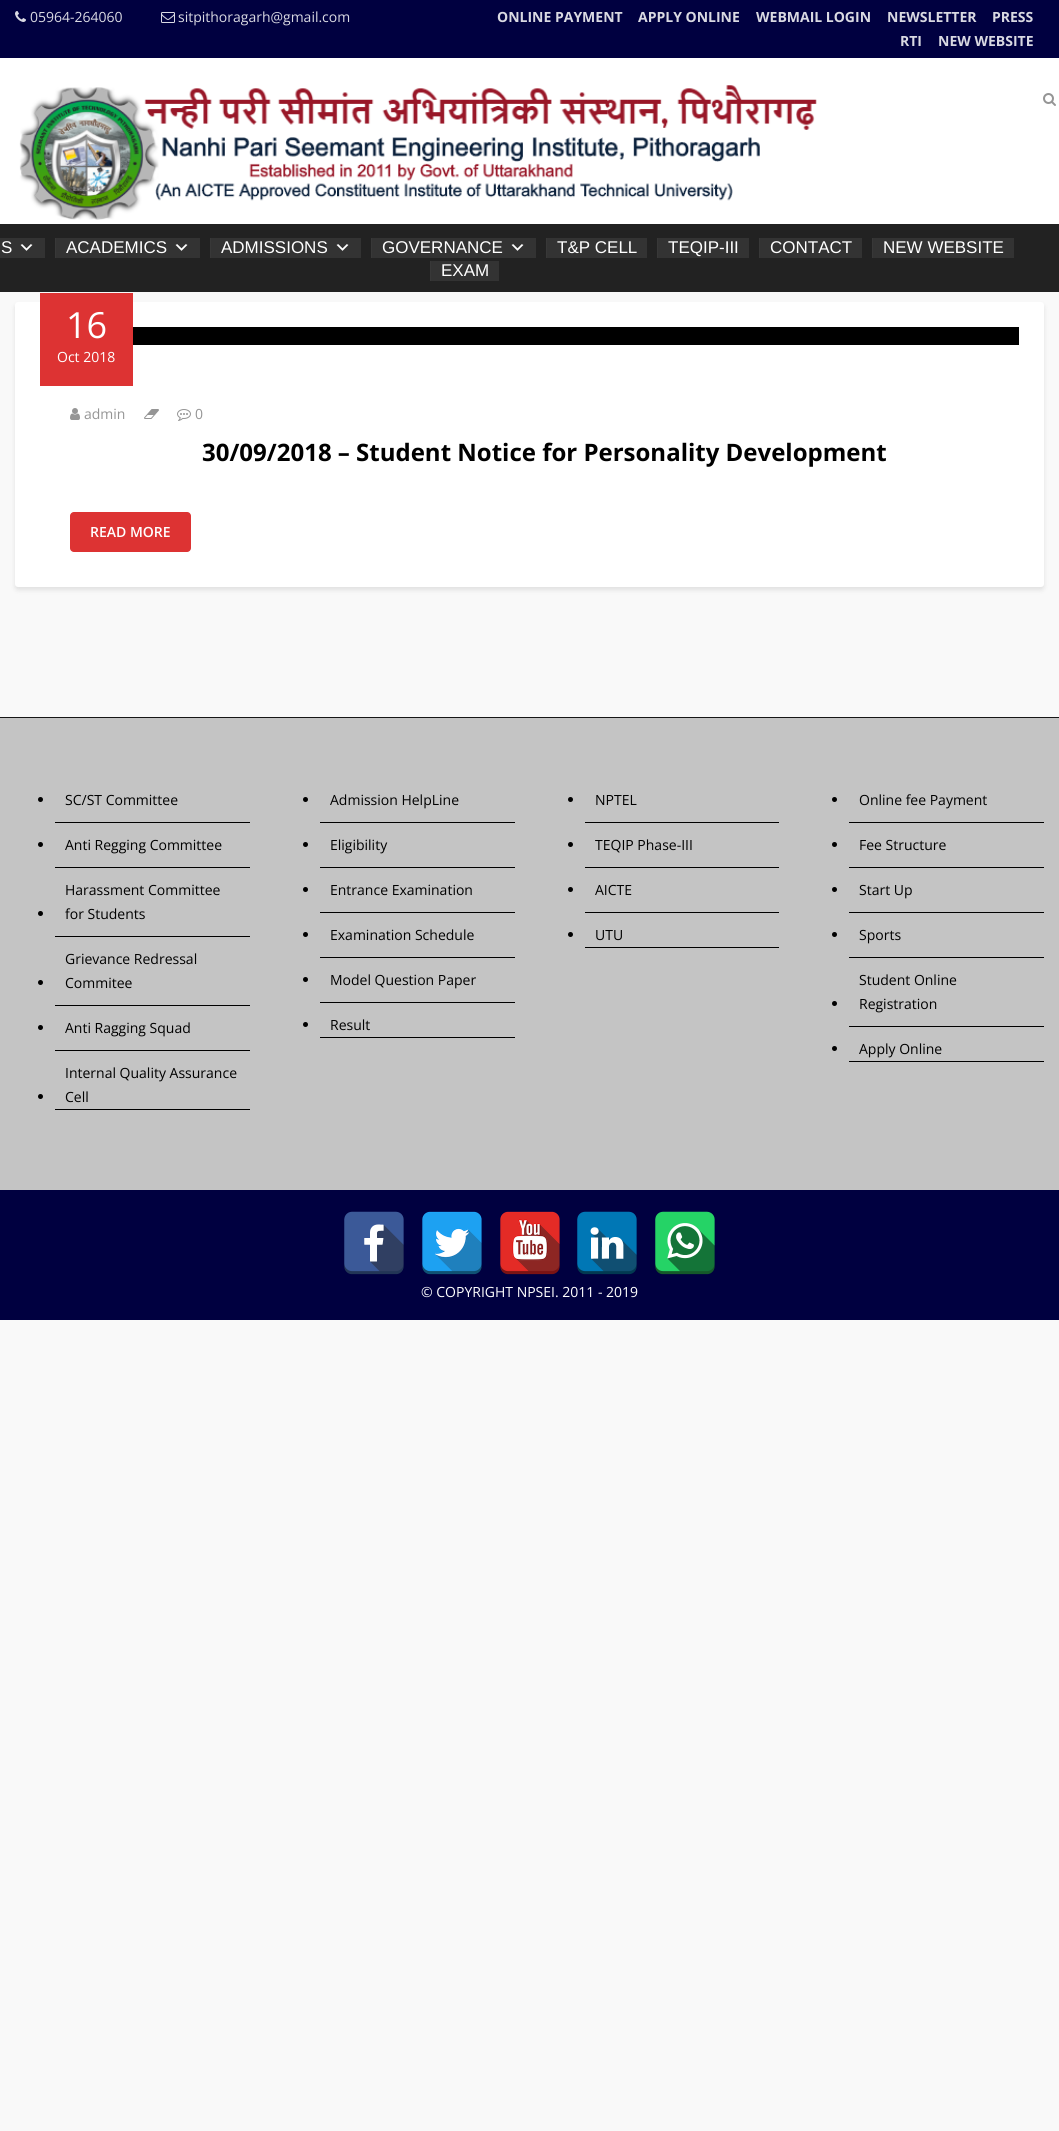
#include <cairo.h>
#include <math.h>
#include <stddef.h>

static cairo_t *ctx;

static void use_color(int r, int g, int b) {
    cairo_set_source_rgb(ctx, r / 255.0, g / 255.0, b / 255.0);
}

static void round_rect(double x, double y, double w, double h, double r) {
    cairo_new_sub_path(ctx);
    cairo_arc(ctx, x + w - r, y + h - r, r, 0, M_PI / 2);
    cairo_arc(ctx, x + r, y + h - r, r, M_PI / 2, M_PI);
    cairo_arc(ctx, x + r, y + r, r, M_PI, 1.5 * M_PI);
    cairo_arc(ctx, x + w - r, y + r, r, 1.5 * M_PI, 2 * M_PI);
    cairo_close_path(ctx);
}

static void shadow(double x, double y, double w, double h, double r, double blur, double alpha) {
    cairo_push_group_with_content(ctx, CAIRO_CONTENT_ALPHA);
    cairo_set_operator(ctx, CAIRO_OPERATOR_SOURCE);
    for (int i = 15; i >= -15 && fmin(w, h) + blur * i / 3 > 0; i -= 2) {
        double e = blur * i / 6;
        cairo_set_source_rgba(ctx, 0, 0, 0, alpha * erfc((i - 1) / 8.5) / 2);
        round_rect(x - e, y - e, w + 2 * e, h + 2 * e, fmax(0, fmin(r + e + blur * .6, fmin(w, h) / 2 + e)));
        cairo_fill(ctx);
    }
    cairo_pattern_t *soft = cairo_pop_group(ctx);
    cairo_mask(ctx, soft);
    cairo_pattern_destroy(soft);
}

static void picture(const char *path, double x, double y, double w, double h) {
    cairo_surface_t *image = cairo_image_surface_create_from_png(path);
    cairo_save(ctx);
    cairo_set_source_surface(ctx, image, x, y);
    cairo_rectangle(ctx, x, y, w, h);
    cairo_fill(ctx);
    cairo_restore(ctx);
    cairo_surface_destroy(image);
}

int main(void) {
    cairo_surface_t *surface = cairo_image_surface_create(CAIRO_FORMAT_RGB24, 1059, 2131);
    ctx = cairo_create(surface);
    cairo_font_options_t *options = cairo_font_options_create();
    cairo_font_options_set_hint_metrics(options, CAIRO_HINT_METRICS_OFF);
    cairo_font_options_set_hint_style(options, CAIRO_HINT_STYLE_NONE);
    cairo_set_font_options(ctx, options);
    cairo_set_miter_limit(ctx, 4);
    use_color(249, 249, 249);
    cairo_paint(ctx);
    use_color(0, 0, 64);
    cairo_rectangle(ctx, 0, 0, 1059, 58);
    cairo_fill(ctx);
    picture("img1.png", 15, 11, 11, 11);
    cairo_select_font_face(ctx, "Open Sans", CAIRO_FONT_SLANT_NORMAL, CAIRO_FONT_WEIGHT_NORMAL);
    cairo_set_font_size(ctx, 14);
    use_color(217, 217, 226);
    cairo_move_to(ctx, 30, 22);
    cairo_show_text(ctx, "05964-264060");
    picture("img2.png", 161, 12, 14, 11);
    cairo_move_to(ctx, 178, 22);
    cairo_show_text(ctx, "sitpithoragarh@gmail.com");
    cairo_select_font_face(ctx, "Open Sans", CAIRO_FONT_SLANT_NORMAL, CAIRO_FONT_WEIGHT_BOLD);
    cairo_move_to(ctx, 497, 22);
    cairo_show_text(ctx, "ONLINE PAYMENT");
    cairo_move_to(ctx, 638, 22);
    cairo_show_text(ctx, "APPLY ONLINE");
    cairo_move_to(ctx, 756, 22);
    cairo_show_text(ctx, "WEBMAIL LOGIN");
    cairo_move_to(ctx, 887, 22);
    cairo_show_text(ctx, "NEWSLETTER");
    cairo_move_to(ctx, 992, 22);
    cairo_show_text(ctx, "PRESS");
    cairo_move_to(ctx, 900, 46);
    cairo_show_text(ctx, "RTI");
    cairo_move_to(ctx, 938, 46);
    cairo_show_text(ctx, "NEW WEBSITE");
    use_color(255, 255, 255);
    cairo_rectangle(ctx, 0, 58, 1059, 166);
    cairo_fill(ctx);
    picture("img3.png", 19, 85, 798, 135);
    picture("img4.png", 1043, 93, 13, 13);
    use_color(34, 34, 34);
    cairo_rectangle(ctx, 0, 224, 1059, 68);
    cairo_fill(ctx);
    use_color(51, 51, 51);
    cairo_rectangle(ctx, 0, 238, 45, 20);
    cairo_fill(ctx);
    cairo_select_font_face(ctx, "Liberation Sans", CAIRO_FONT_SLANT_NORMAL, CAIRO_FONT_WEIGHT_NORMAL);
    cairo_set_font_size(ctx, 17);
    use_color(255, 255, 255);
    cairo_move_to(ctx, 1, 253);
    cairo_show_text(ctx, "S");
    picture("img5.png", 20, 244, 13, 7);
    use_color(56, 56, 56);
    cairo_rectangle(ctx, 55, 238, 1, 20);
    cairo_fill(ctx);
    use_color(51, 51, 51);
    cairo_rectangle(ctx, 56, 238, 144, 20);
    cairo_fill(ctx);
    use_color(255, 255, 255);
    cairo_move_to(ctx, 66, 253);
    cairo_show_text(ctx, "ACADEMICS");
    picture("img5.png", 175, 244, 13, 7);
    use_color(56, 56, 56);
    cairo_rectangle(ctx, 210, 238, 1, 20);
    cairo_fill(ctx);
    use_color(51, 51, 51);
    cairo_rectangle(ctx, 211, 238, 150, 20);
    cairo_fill(ctx);
    use_color(255, 255, 255);
    cairo_move_to(ctx, 221, 253);
    cairo_show_text(ctx, "ADMISSIONS");
    picture("img5.png", 336, 244, 13, 7);
    use_color(56, 56, 56);
    cairo_rectangle(ctx, 371, 238, 1, 20);
    cairo_fill(ctx);
    use_color(51, 51, 51);
    cairo_rectangle(ctx, 372, 238, 164, 20);
    cairo_fill(ctx);
    use_color(255, 255, 255);
    cairo_move_to(ctx, 382, 253);
    cairo_show_text(ctx, "GOVERNANCE");
    picture("img5.png", 511, 244, 13, 7);
    use_color(56, 56, 56);
    cairo_rectangle(ctx, 546, 238, 1, 20);
    cairo_fill(ctx);
    use_color(51, 51, 51);
    cairo_rectangle(ctx, 547, 238, 100, 20);
    cairo_fill(ctx);
    use_color(255, 255, 255);
    cairo_move_to(ctx, 557, 253);
    cairo_show_text(ctx, "T&P CELL");
    use_color(56, 56, 56);
    cairo_rectangle(ctx, 657, 238, 1, 20);
    cairo_fill(ctx);
    use_color(51, 51, 51);
    cairo_rectangle(ctx, 658, 238, 91, 20);
    cairo_fill(ctx);
    use_color(255, 255, 255);
    cairo_move_to(ctx, 668, 253);
    cairo_show_text(ctx, "TEQIP-III");
    use_color(56, 56, 56);
    cairo_rectangle(ctx, 759, 238, 1, 20);
    cairo_fill(ctx);
    use_color(51, 51, 51);
    cairo_rectangle(ctx, 760, 238, 102, 20);
    cairo_fill(ctx);
    use_color(255, 255, 255);
    cairo_move_to(ctx, 770, 253);
    cairo_show_text(ctx, "CONTACT");
    use_color(56, 56, 56);
    cairo_rectangle(ctx, 872, 238, 1, 20);
    cairo_fill(ctx);
    use_color(51, 51, 51);
    cairo_rectangle(ctx, 873, 238, 141, 20);
    cairo_fill(ctx);
    use_color(255, 255, 255);
    cairo_move_to(ctx, 883, 253);
    cairo_show_text(ctx, "NEW WEBSITE");
    use_color(56, 56, 56);
    cairo_rectangle(ctx, 430, 261, 1, 20);
    cairo_fill(ctx);
    use_color(51, 51, 51);
    cairo_rectangle(ctx, 431, 261, 68, 20);
    cairo_fill(ctx);
    use_color(255, 255, 255);
    cairo_move_to(ctx, 441, 276);
    cairo_show_text(ctx, "EXAM");
    use_color(0, 0, 0);
    shadow(15, 305, 1029, 285, 3, 2.5, 0.1);
    use_color(255, 255, 255);
    round_rect(15, 302, 1029, 285, 3);
    cairo_fill(ctx);
    use_color(221, 51, 51);
    cairo_rectangle(ctx, 40, 293, 93, 93);
    cairo_fill(ctx);
    cairo_select_font_face(ctx, "Open Sans", CAIRO_FONT_SLANT_NORMAL, CAIRO_FONT_WEIGHT_NORMAL);
    cairo_set_font_size(ctx, 36);
    use_color(255, 255, 255);
    cairo_move_to(ctx, 66, 338);
    cairo_show_text(ctx, "16");
    cairo_set_font_size(ctx, 14);
    cairo_move_to(ctx, 57, 362);
    cairo_show_text(ctx, "Oct 2018");
    picture("img6.png", 70, 408, 10, 12);
    use_color(149, 149, 149);
    cairo_move_to(ctx, 84, 419);
    cairo_show_text(ctx, "admin");
    picture("img7.png", 144, 409, 15, 10);
    picture("img8.png", 177, 409, 14, 12);
    cairo_move_to(ctx, 195, 419);
    cairo_show_text(ctx, "0");
    cairo_select_font_face(ctx, "Open Sans", CAIRO_FONT_SLANT_NORMAL, CAIRO_FONT_WEIGHT_BOLD);
    cairo_set_font_size(ctx, 24);
    use_color(0, 0, 0);
    cairo_move_to(ctx, 202, 461);
    cairo_show_text(ctx, "30/09/2018 – Student Notice for Personality Development");
    use_color(221, 51, 51);
    round_rect(70, 512, 121, 40, 4);
    cairo_fill(ctx);
    cairo_select_font_face(ctx, "Open Sans SemiBold", CAIRO_FONT_SLANT_NORMAL, CAIRO_FONT_WEIGHT_NORMAL);
    cairo_set_font_size(ctx, 14);
    use_color(255, 255, 255);
    cairo_move_to(ctx, 90, 537);
    cairo_show_text(ctx, "READ MORE");
    use_color(0, 0, 0);
    cairo_rectangle(ctx, 133, 327, 886, 18);
    cairo_fill(ctx);
    use_color(196, 196, 196);
    cairo_rectangle(ctx, 0, 718, 1059, 472);
    cairo_fill(ctx);
    use_color(22, 22, 22);
    cairo_rectangle(ctx, 0, 717, 1059, 1);
    cairo_fill(ctx);
    use_color(0, 0, 0);
    cairo_arc(ctx, 40.5, 799.5, 2.5, 0, 2 * M_PI);
    cairo_fill(ctx);
    cairo_rectangle(ctx, 55, 822, 195, 1);
    cairo_fill(ctx);
    cairo_select_font_face(ctx, "Open Sans", CAIRO_FONT_SLANT_NORMAL, CAIRO_FONT_WEIGHT_NORMAL);
    cairo_move_to(ctx, 65, 805);
    cairo_show_text(ctx, "SC/ST Committee");
    cairo_new_path(ctx);
    cairo_arc(ctx, 40.5, 844.5, 2.5, 0, 2 * M_PI);
    cairo_fill(ctx);
    cairo_rectangle(ctx, 55, 867, 195, 1);
    cairo_fill(ctx);
    cairo_move_to(ctx, 65, 850);
    cairo_show_text(ctx, "Anti Regging Committee");
    cairo_new_path(ctx);
    cairo_arc(ctx, 40.5, 913.5, 2.5, 0, 2 * M_PI);
    cairo_fill(ctx);
    cairo_rectangle(ctx, 55, 936, 195, 1);
    cairo_fill(ctx);
    cairo_move_to(ctx, 65, 895);
    cairo_show_text(ctx, "Harassment Committee");
    cairo_move_to(ctx, 65, 919);
    cairo_show_text(ctx, "for Students");
    cairo_new_path(ctx);
    cairo_arc(ctx, 40.5, 982.5, 2.5, 0, 2 * M_PI);
    cairo_fill(ctx);
    cairo_rectangle(ctx, 55, 1005, 195, 1);
    cairo_fill(ctx);
    cairo_move_to(ctx, 65, 964);
    cairo_show_text(ctx, "Grievance Redressal");
    cairo_move_to(ctx, 65, 988);
    cairo_show_text(ctx, "Commitee");
    cairo_new_path(ctx);
    cairo_arc(ctx, 40.5, 1027.5, 2.5, 0, 2 * M_PI);
    cairo_fill(ctx);
    cairo_rectangle(ctx, 55, 1050, 195, 1);
    cairo_fill(ctx);
    cairo_move_to(ctx, 65, 1033);
    cairo_show_text(ctx, "Anti Ragging Squad");
    cairo_new_path(ctx);
    cairo_arc(ctx, 40.5, 1096.5, 2.5, 0, 2 * M_PI);
    cairo_fill(ctx);
    cairo_rectangle(ctx, 55, 1109, 195, 1);
    cairo_fill(ctx);
    cairo_move_to(ctx, 65, 1078);
    cairo_show_text(ctx, "Internal Quality Assurance");
    cairo_move_to(ctx, 65, 1102);
    cairo_show_text(ctx, "Cell");
    cairo_new_path(ctx);
    cairo_arc(ctx, 305.5, 799.5, 2.5, 0, 2 * M_PI);
    cairo_fill(ctx);
    cairo_rectangle(ctx, 320, 822, 195, 1);
    cairo_fill(ctx);
    cairo_move_to(ctx, 330, 805);
    cairo_show_text(ctx, "Admission HelpLine");
    cairo_new_path(ctx);
    cairo_arc(ctx, 305.5, 844.5, 2.5, 0, 2 * M_PI);
    cairo_fill(ctx);
    cairo_rectangle(ctx, 320, 867, 195, 1);
    cairo_fill(ctx);
    cairo_move_to(ctx, 330, 850);
    cairo_show_text(ctx, "Eligibility");
    cairo_new_path(ctx);
    cairo_arc(ctx, 305.5, 889.5, 2.5, 0, 2 * M_PI);
    cairo_fill(ctx);
    cairo_rectangle(ctx, 320, 912, 195, 1);
    cairo_fill(ctx);
    cairo_move_to(ctx, 330, 895);
    cairo_show_text(ctx, "Entrance Examination");
    cairo_new_path(ctx);
    cairo_arc(ctx, 305.5, 934.5, 2.5, 0, 2 * M_PI);
    cairo_fill(ctx);
    cairo_rectangle(ctx, 320, 957, 195, 1);
    cairo_fill(ctx);
    cairo_move_to(ctx, 330, 940);
    cairo_show_text(ctx, "Examination Schedule");
    cairo_new_path(ctx);
    cairo_arc(ctx, 305.5, 979.5, 2.5, 0, 2 * M_PI);
    cairo_fill(ctx);
    cairo_rectangle(ctx, 320, 1002, 195, 1);
    cairo_fill(ctx);
    cairo_move_to(ctx, 330, 985);
    cairo_show_text(ctx, "Model Question Paper");
    cairo_new_path(ctx);
    cairo_arc(ctx, 305.5, 1024.5, 2.5, 0, 2 * M_PI);
    cairo_fill(ctx);
    cairo_rectangle(ctx, 320, 1037, 195, 1);
    cairo_fill(ctx);
    cairo_move_to(ctx, 330, 1030);
    cairo_show_text(ctx, "Result");
    cairo_new_path(ctx);
    cairo_arc(ctx, 570.5, 799.5, 2.5, 0, 2 * M_PI);
    cairo_fill(ctx);
    cairo_rectangle(ctx, 585, 822, 194, 1);
    cairo_fill(ctx);
    cairo_move_to(ctx, 595, 805);
    cairo_show_text(ctx, "NPTEL");
    cairo_new_path(ctx);
    cairo_arc(ctx, 570.5, 844.5, 2.5, 0, 2 * M_PI);
    cairo_fill(ctx);
    cairo_rectangle(ctx, 585, 867, 194, 1);
    cairo_fill(ctx);
    cairo_move_to(ctx, 595, 850);
    cairo_show_text(ctx, "TEQIP Phase-III");
    cairo_new_path(ctx);
    cairo_arc(ctx, 570.5, 889.5, 2.5, 0, 2 * M_PI);
    cairo_fill(ctx);
    cairo_rectangle(ctx, 585, 912, 194, 1);
    cairo_fill(ctx);
    cairo_move_to(ctx, 595, 895);
    cairo_show_text(ctx, "AICTE");
    cairo_new_path(ctx);
    cairo_arc(ctx, 570.5, 934.5, 2.5, 0, 2 * M_PI);
    cairo_fill(ctx);
    cairo_rectangle(ctx, 585, 947, 194, 1);
    cairo_fill(ctx);
    cairo_move_to(ctx, 595, 940);
    cairo_show_text(ctx, "UTU");
    cairo_new_path(ctx);
    cairo_arc(ctx, 834.5, 799.5, 2.5, 0, 2 * M_PI);
    cairo_fill(ctx);
    cairo_rectangle(ctx, 849, 822, 195, 1);
    cairo_fill(ctx);
    cairo_move_to(ctx, 859, 805);
    cairo_show_text(ctx, "Online fee Payment");
    cairo_new_path(ctx);
    cairo_arc(ctx, 834.5, 844.5, 2.5, 0, 2 * M_PI);
    cairo_fill(ctx);
    cairo_rectangle(ctx, 849, 867, 195, 1);
    cairo_fill(ctx);
    cairo_move_to(ctx, 859, 850);
    cairo_show_text(ctx, "Fee Structure");
    cairo_new_path(ctx);
    cairo_arc(ctx, 834.5, 889.5, 2.5, 0, 2 * M_PI);
    cairo_fill(ctx);
    cairo_rectangle(ctx, 849, 912, 195, 1);
    cairo_fill(ctx);
    cairo_move_to(ctx, 859, 895);
    cairo_show_text(ctx, "Start Up");
    cairo_new_path(ctx);
    cairo_arc(ctx, 834.5, 934.5, 2.5, 0, 2 * M_PI);
    cairo_fill(ctx);
    cairo_rectangle(ctx, 849, 957, 195, 1);
    cairo_fill(ctx);
    cairo_move_to(ctx, 859, 940);
    cairo_show_text(ctx, "Sports");
    cairo_new_path(ctx);
    cairo_arc(ctx, 834.5, 1003.5, 2.5, 0, 2 * M_PI);
    cairo_fill(ctx);
    cairo_rectangle(ctx, 849, 1026, 195, 1);
    cairo_fill(ctx);
    cairo_move_to(ctx, 859, 985);
    cairo_show_text(ctx, "Student Online");
    cairo_move_to(ctx, 859, 1009);
    cairo_show_text(ctx, "Registration");
    cairo_new_path(ctx);
    cairo_arc(ctx, 834.5, 1048.5, 2.5, 0, 2 * M_PI);
    cairo_fill(ctx);
    cairo_rectangle(ctx, 849, 1061, 195, 1);
    cairo_fill(ctx);
    cairo_move_to(ctx, 859, 1054);
    cairo_show_text(ctx, "Apply Online");
    use_color(0, 0, 64);
    cairo_rectangle(ctx, 0, 1190, 1059, 130);
    cairo_fill(ctx);
    picture("img9.png", 344, 1211, 60, 64);
    picture("img10.png", 422, 1211, 60, 64);
    picture("img11.png", 500, 1211, 60, 64);
    picture("img12.png", 577, 1211, 60, 64);
    picture("img13.png", 655, 1211, 60, 64);
    use_color(255, 255, 255);
    cairo_move_to(ctx, 421, 1297);
    cairo_show_text(ctx, "© COPYRIGHT NPSEI. 2011 - 2019");
    cairo_surface_write_to_png(surface, "result.png");
    cairo_font_options_destroy(options);
    cairo_destroy(ctx);
    cairo_surface_destroy(surface);
    return 0;
}
